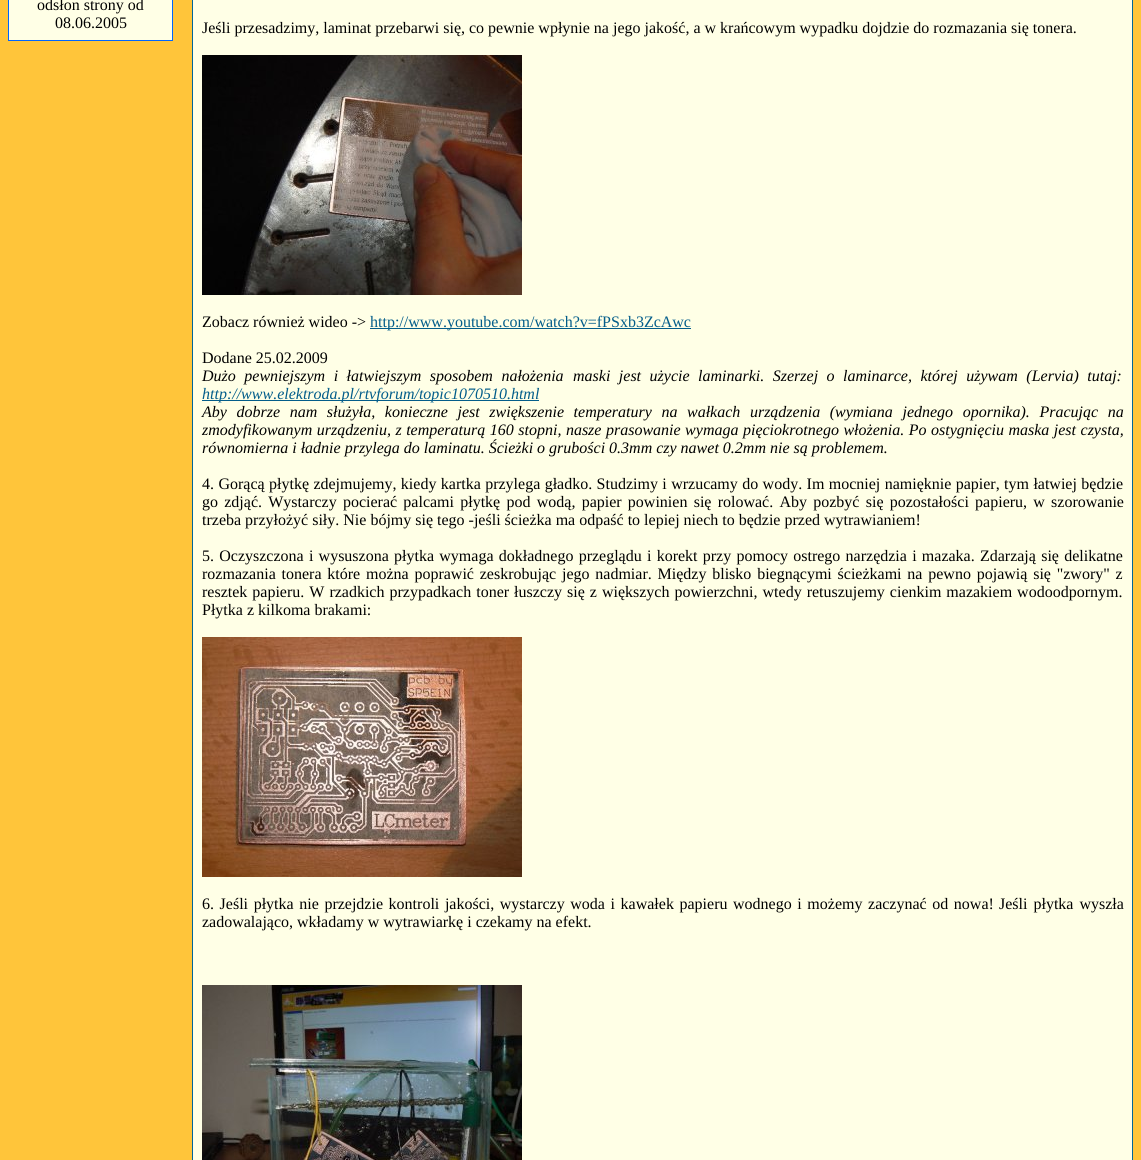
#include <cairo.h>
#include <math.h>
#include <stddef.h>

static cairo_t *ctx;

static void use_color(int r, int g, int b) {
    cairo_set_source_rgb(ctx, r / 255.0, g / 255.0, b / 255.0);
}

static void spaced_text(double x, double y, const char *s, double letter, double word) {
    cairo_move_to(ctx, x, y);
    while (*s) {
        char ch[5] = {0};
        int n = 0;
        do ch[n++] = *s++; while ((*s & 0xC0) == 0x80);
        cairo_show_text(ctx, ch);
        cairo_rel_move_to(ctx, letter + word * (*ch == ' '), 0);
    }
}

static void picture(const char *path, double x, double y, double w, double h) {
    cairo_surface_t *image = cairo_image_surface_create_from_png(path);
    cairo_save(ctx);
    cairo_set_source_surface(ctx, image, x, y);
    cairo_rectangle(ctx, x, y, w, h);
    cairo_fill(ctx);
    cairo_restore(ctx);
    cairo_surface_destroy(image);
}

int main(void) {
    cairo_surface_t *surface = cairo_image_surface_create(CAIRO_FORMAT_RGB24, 1141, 1160);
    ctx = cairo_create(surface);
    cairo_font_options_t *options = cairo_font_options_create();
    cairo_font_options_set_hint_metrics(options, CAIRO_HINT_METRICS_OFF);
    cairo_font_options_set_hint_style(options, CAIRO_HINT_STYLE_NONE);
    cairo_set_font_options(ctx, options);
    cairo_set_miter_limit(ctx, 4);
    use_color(255, 197, 58);
    cairo_paint(ctx);
    use_color(0, 102, 255);
    cairo_rectangle(ctx, 8, 0, 165, 41);
    cairo_fill(ctx);
    use_color(255, 255, 230);
    cairo_rectangle(ctx, 9, 0, 163, 40);
    cairo_fill(ctx);
    cairo_select_font_face(ctx, "Liberation Serif", CAIRO_FONT_SLANT_NORMAL, CAIRO_FONT_WEIGHT_NORMAL);
    cairo_set_font_size(ctx, 16);
    use_color(0, 0, 0);
    cairo_move_to(ctx, 37, 10);
    cairo_show_text(ctx, "odsłon strony od");
    cairo_move_to(ctx, 55, 28);
    cairo_show_text(ctx, "08.06.2005");
    use_color(0, 102, 153);
    cairo_rectangle(ctx, 192, 0, 941, 1160);
    cairo_fill(ctx);
    use_color(255, 255, 230);
    cairo_rectangle(ctx, 193, 0, 939, 1160);
    cairo_fill(ctx);
    use_color(0, 0, 0);
    cairo_move_to(ctx, 202, 33);
    cairo_show_text(ctx, "Jeśli przesadzimy, laminat przebarwi się, co pewnie wpłynie na jego jakość, a w krańcowym wypadku dojdzie do rozmazania się tonera.");
    picture("img1.png", 202, 55, 320, 240);
    cairo_move_to(ctx, 202, 327);
    cairo_show_text(ctx, "Zobacz również wideo ->");
    use_color(3, 93, 138);
    cairo_rectangle(ctx, 370, 328, 321, 1);
    cairo_fill(ctx);
    cairo_move_to(ctx, 370, 327);
    cairo_show_text(ctx, "http://www.youtube.com/watch?v=fPSxb3ZcAwc");
    use_color(0, 0, 0);
    cairo_move_to(ctx, 202, 363);
    cairo_show_text(ctx, "Dodane 25.02.2009");
    cairo_select_font_face(ctx, "Liberation Serif", CAIRO_FONT_SLANT_ITALIC, CAIRO_FONT_WEIGHT_NORMAL);
    spaced_text(202, 381, "Dużo pewniejszym i łatwiejszym sposobem nałożenia", 0, 4.5);
    spaced_text(573, 381, "maski jest użycie laminarki. Szerzej o laminarce, której używam (Lervia) tutaj:", 0, 4.5);
    use_color(3, 93, 138);
    cairo_rectangle(ctx, 202, 400, 337, 1);
    cairo_fill(ctx);
    cairo_move_to(ctx, 202, 399);
    cairo_show_text(ctx, "http://www.elektroda.pl/rtvforum/topic1070510.html");
    use_color(0, 0, 0);
    spaced_text(202, 417, "Aby dobrze nam służyła, konieczne jest zwiększenie temperatury na wałkach urządzenia (wymiana jednego opornika). Pracując na", 0, 5.6);
    spaced_text(202, 435, "zmodyfikowanym urządzeniu, z temperaturą 160 stopni, nasze prasowanie wymaga pięciokrotnego włożenia. Po ostygnięciu maska jest czysta,", 0, 0.5);
    cairo_move_to(ctx, 202, 453);
    cairo_show_text(ctx, "równomierna i ładnie przylega do laminatu. Ścieżki o grubości 0.3mm czy nawet 0.2mm nie są problemem.");
    cairo_select_font_face(ctx, "Liberation Serif", CAIRO_FONT_SLANT_NORMAL, CAIRO_FONT_WEIGHT_NORMAL);
    spaced_text(202, 489, "4. Gorącą płytkę zdejmujemy, kiedy kartka przylega gładko. Studzimy i wrzucamy do wody. Im mocniej namięknie papier, tym łatwiej będzie", 0, 0.4);
    spaced_text(202, 507, "go zdjąć. Wystarczy pocierać palcami płytkę pod wodą, papier powinien się rolować. Aby pozbyć się pozostałości papieru, w szorowanie", 0, 2.25);
    cairo_move_to(ctx, 202, 525);
    cairo_show_text(ctx, "trzeba przyłożyć siły. Nie bójmy się tego -jeśli ścieżka ma odpaść to lepiej niech to będzie przed wytrawianiem!");
    spaced_text(202, 561, "5. Oczyszczona i wysuszona płytka wymaga dokładnego przeglądu i korekt przy pomocy ostrego narzędzia i mazaka. Zdarzają się delikatne", 0, 1.25);
    spaced_text(202, 579, "rozmazania tonera które można poprawić zeskrobując jego nadmiar. Między blisko biegnącymi ścieżkami na pewno pojawią się \"zwory\" z", 0, 1.8);
    spaced_text(202, 597, "resztek papieru. W rzadkich przypadkach toner łuszczy się z większych powierzchni, wtedy retuszujemy cienkim mazakiem wodoodpornym.", 0, 1);
    cairo_move_to(ctx, 202, 615);
    cairo_show_text(ctx, "Płytka z kilkoma brakami:");
    picture("img2.png", 202, 637, 320, 240);
    spaced_text(202, 909, "6. Jeśli płytka nie przejdzie kontroli jakości, wystarczy woda i kawałek papieru wodnego i możemy zaczynać od nowa!", 0, 1.6);
    spaced_text(999, 909, "Jeśli płytka wyszła", 0, 2);
    cairo_move_to(ctx, 202, 927);
    cairo_show_text(ctx, "zadowalająco, wkładamy w wytrawiarkę i czekamy na efekt.");
    picture("img3.png", 202, 985, 320, 175);
    cairo_surface_write_to_png(surface, "result.png");
    cairo_font_options_destroy(options);
    cairo_destroy(ctx);
    cairo_surface_destroy(surface);
    return 0;
}
